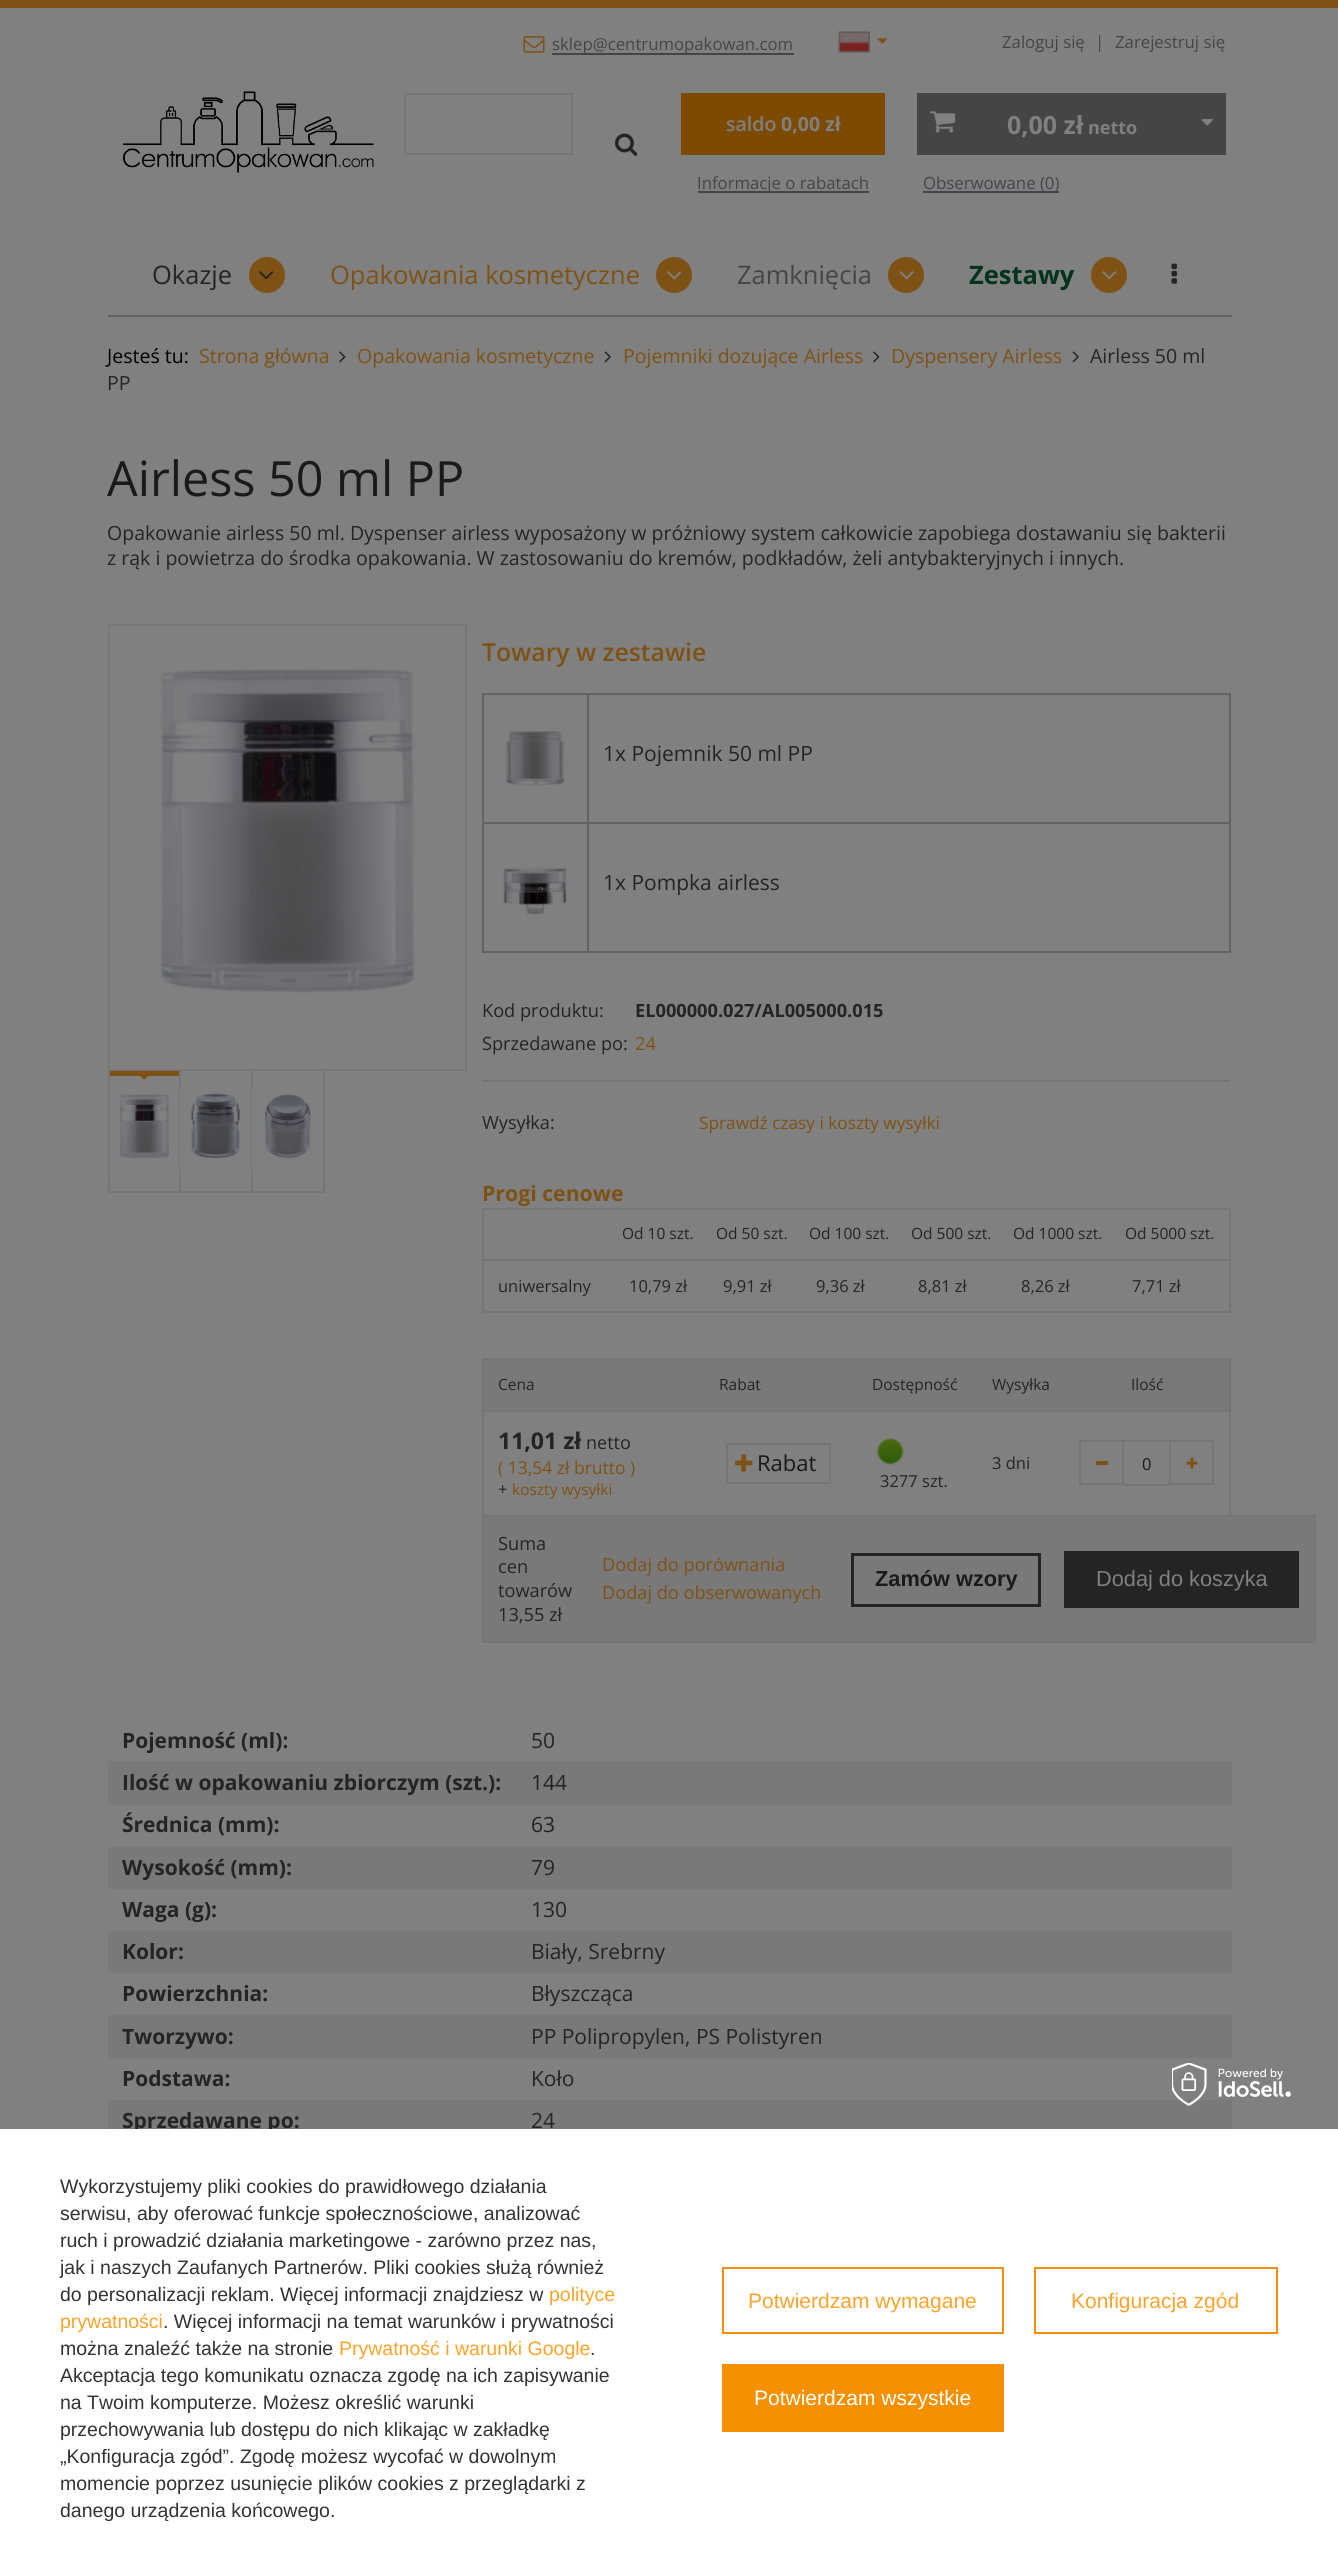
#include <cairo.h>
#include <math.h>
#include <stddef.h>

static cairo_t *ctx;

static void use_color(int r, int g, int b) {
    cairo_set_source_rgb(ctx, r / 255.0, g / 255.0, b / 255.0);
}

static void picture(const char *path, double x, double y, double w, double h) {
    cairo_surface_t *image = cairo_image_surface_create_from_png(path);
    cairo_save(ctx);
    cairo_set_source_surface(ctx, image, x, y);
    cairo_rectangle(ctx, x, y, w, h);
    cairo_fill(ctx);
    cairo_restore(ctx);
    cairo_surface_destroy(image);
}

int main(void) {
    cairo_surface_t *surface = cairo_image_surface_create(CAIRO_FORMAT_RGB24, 1338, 2569);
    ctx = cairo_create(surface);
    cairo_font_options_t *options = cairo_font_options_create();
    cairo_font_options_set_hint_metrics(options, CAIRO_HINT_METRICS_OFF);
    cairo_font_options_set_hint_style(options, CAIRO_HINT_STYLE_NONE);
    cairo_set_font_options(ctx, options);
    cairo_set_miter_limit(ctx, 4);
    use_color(128, 128, 128);
    cairo_paint(ctx);
    use_color(126, 82, 21);
    cairo_rectangle(ctx, 0, 0, 1338, 8);
    cairo_fill(ctx);
    picture("img1.png", 523, 36, 22, 17);
    use_color(68, 69, 69);
    cairo_rectangle(ctx, 552, 53, 242, 2);
    cairo_fill(ctx);
    cairo_select_font_face(ctx, "Open Sans", CAIRO_FONT_SLANT_NORMAL, CAIRO_FONT_WEIGHT_NORMAL);
    cairo_set_font_size(ctx, 16.75);
    cairo_move_to(ctx, 552, 50);
    cairo_show_text(ctx, "sklep@centrumopakowan.com");
    picture("img2.png", 838, 31, 32, 22);
    picture("img3.png", 877, 38, 10, 6);
    cairo_move_to(ctx, 1002, 48);
    cairo_show_text(ctx, "Zaloguj się");
    cairo_move_to(ctx, 1095, 48);
    cairo_show_text(ctx, "|");
    cairo_move_to(ctx, 1115, 48);
    cairo_show_text(ctx, "Zarejestruj się");
    picture("img4.png", 123, 91, 251, 82);
    cairo_rectangle(ctx, 405, 94, 167, 60);
    use_color(117, 117, 117);
    cairo_stroke(ctx);
    picture("img5.png", 615, 133, 23, 23);
    use_color(124, 74, 0);
    cairo_rectangle(ctx, 681, 93, 204, 62);
    cairo_fill(ctx);
    cairo_select_font_face(ctx, "Open Sans SemiBold", CAIRO_FONT_SLANT_NORMAL, CAIRO_FONT_WEIGHT_NORMAL);
    cairo_set_font_size(ctx, 19.53);
    use_color(128, 128, 128);
    cairo_move_to(ctx, 726, 131);
    cairo_show_text(ctx, "saldo");
    cairo_select_font_face(ctx, "Open Sans", CAIRO_FONT_SLANT_NORMAL, CAIRO_FONT_WEIGHT_BOLD);
    cairo_move_to(ctx, 781, 131);
    cairo_show_text(ctx, "0,00 zł");
    use_color(68, 69, 69);
    cairo_rectangle(ctx, 698, 191, 171, 2);
    cairo_fill(ctx);
    cairo_select_font_face(ctx, "Open Sans", CAIRO_FONT_SLANT_NORMAL, CAIRO_FONT_WEIGHT_NORMAL);
    cairo_set_font_size(ctx, 16.75);
    cairo_move_to(ctx, 697, 189);
    cairo_show_text(ctx, "Informacje o rabatach");
    cairo_rectangle(ctx, 917, 93, 309, 62);
    cairo_fill(ctx);
    picture("img6.png", 930, 111, 26, 22);
    cairo_select_font_face(ctx, "Open Sans", CAIRO_FONT_SLANT_NORMAL, CAIRO_FONT_WEIGHT_BOLD);
    cairo_set_font_size(ctx, 25);
    use_color(128, 128, 128);
    cairo_move_to(ctx, 1007, 134);
    cairo_show_text(ctx, "0,00 zł");
    cairo_set_font_size(ctx, 18);
    cairo_move_to(ctx, 1088, 134);
    cairo_show_text(ctx, "netto");
    picture("img7.png", 1201, 119, 12, 7);
    use_color(68, 68, 76);
    cairo_rectangle(ctx, 923, 191, 136, 2);
    cairo_fill(ctx);
    cairo_select_font_face(ctx, "Open Sans", CAIRO_FONT_SLANT_NORMAL, CAIRO_FONT_WEIGHT_NORMAL);
    cairo_set_font_size(ctx, 16.75);
    cairo_move_to(ctx, 923, 189);
    cairo_show_text(ctx, "Obserwowane (0)");
    cairo_set_font_size(ctx, 25.5);
    use_color(36, 36, 36);
    cairo_move_to(ctx, 152, 284);
    cairo_show_text(ctx, "Okazje");
    use_color(126, 82, 21);
    cairo_new_path(ctx);
    cairo_arc(ctx, 267, 275, 18, 0, 2 * M_PI);
    cairo_fill(ctx);
    picture("img8.png", 259, 271, 15, 9);
    cairo_move_to(ctx, 330, 284);
    cairo_show_text(ctx, "Opakowania kosmetyczne");
    cairo_new_path(ctx);
    cairo_arc(ctx, 674, 275, 18, 0, 2 * M_PI);
    cairo_fill(ctx);
    picture("img9.png", 667, 271, 15, 9);
    use_color(68, 69, 69);
    cairo_move_to(ctx, 737, 284);
    cairo_show_text(ctx, "Zamknięcia");
    use_color(126, 82, 21);
    cairo_new_path(ctx);
    cairo_arc(ctx, 906, 275, 18, 0, 2 * M_PI);
    cairo_fill(ctx);
    picture("img10.png", 899, 271, 15, 9);
    cairo_select_font_face(ctx, "Open Sans", CAIRO_FONT_SLANT_NORMAL, CAIRO_FONT_WEIGHT_BOLD);
    use_color(0, 52, 28);
    cairo_move_to(ctx, 969, 284);
    cairo_show_text(ctx, "Zestawy");
    use_color(126, 82, 21);
    cairo_new_path(ctx);
    cairo_arc(ctx, 1109, 275, 18, 0, 2 * M_PI);
    cairo_fill(ctx);
    picture("img9.png", 1102, 271, 15, 9);
    picture("img11.png", 1171, 263, 6, 21);
    use_color(99, 99, 99);
    cairo_rectangle(ctx, 108, 315, 1124, 2);
    cairo_fill(ctx);
    cairo_select_font_face(ctx, "Open Sans", CAIRO_FONT_SLANT_NORMAL, CAIRO_FONT_WEIGHT_NORMAL);
    cairo_set_font_size(ctx, 19.53);
    use_color(0, 0, 0);
    cairo_move_to(ctx, 107, 363);
    cairo_show_text(ctx, "Jesteś tu:");
    use_color(126, 82, 21);
    cairo_move_to(ctx, 199, 363);
    cairo_show_text(ctx, "Strona główna");
    picture("img12.png", 339, 351, 7, 12);
    cairo_move_to(ctx, 357, 363);
    cairo_show_text(ctx, "Opakowania kosmetyczne");
    picture("img13.png", 604, 351, 7, 12);
    cairo_move_to(ctx, 623, 363);
    cairo_show_text(ctx, "Pojemniki dozujące Airless");
    picture("img12.png", 873, 351, 7, 12);
    cairo_move_to(ctx, 891, 363);
    cairo_show_text(ctx, "Dyspensery Airless");
    picture("img13.png", 1072, 351, 7, 12);
    use_color(36, 36, 36);
    cairo_move_to(ctx, 1090, 363);
    cairo_show_text(ctx, "Airless 50 ml");
    cairo_move_to(ctx, 107, 390);
    cairo_show_text(ctx, "PP");
    cairo_set_font_size(ctx, 48.5);
    use_color(26, 26, 26);
    cairo_move_to(ctx, 107, 496);
    cairo_show_text(ctx, "Airless 50 ml PP");
    cairo_set_font_size(ctx, 19.53);
    use_color(36, 36, 36);
    cairo_move_to(ctx, 107, 540);
    cairo_show_text(ctx, "Opakowanie airless 50 ml. Dyspenser airless wyposażony w próżniowy system całkowicie zapobiega dostawaniu się bakterii");
    cairo_move_to(ctx, 107, 565);
    cairo_show_text(ctx, "z rąk i powietrza do środka opakowania. W zastosowaniu do kremów, podkładów, żeli antybakteryjnych i innych.");
    cairo_rectangle(ctx, 109, 625, 357, 445);
    use_color(117, 117, 117);
    cairo_stroke(ctx);
    picture("img14.png", 109, 625, 356, 445);
    cairo_rectangle(ctx, 108, 1071, 2, 122);
    cairo_fill(ctx);
    cairo_rectangle(ctx, 179, 1071, 2, 122);
    cairo_fill(ctx);
    cairo_rectangle(ctx, 110, 1191, 70, 2);
    cairo_fill(ctx);
    use_color(126, 82, 21);
    cairo_new_path(ctx);
    cairo_move_to(ctx, 138, 1074);
    cairo_line_to(ctx, 150, 1074);
    cairo_line_to(ctx, 144, 1080);
    cairo_close_path(ctx);
    cairo_fill(ctx);
    cairo_rectangle(ctx, 110, 1071, 69, 5);
    cairo_fill(ctx);
    picture("img15.png", 109, 1086, 60, 87);
    use_color(117, 117, 117);
    cairo_rectangle(ctx, 251, 1071, 2, 122);
    cairo_fill(ctx);
    cairo_rectangle(ctx, 180, 1191, 72, 2);
    cairo_fill(ctx);
    picture("img16.png", 180, 1086, 60, 87);
    cairo_rectangle(ctx, 323, 1071, 2, 122);
    cairo_fill(ctx);
    cairo_rectangle(ctx, 252, 1191, 72, 2);
    cairo_fill(ctx);
    picture("img17.png", 252, 1086, 59, 87);
    cairo_select_font_face(ctx, "Open Sans SemiBold", CAIRO_FONT_SLANT_NORMAL, CAIRO_FONT_WEIGHT_NORMAL);
    cairo_set_font_size(ctx, 24.75);
    use_color(126, 82, 21);
    cairo_move_to(ctx, 482, 661);
    cairo_show_text(ctx, "Towary w zestawie");
    use_color(99, 99, 99);
    cairo_rectangle(ctx, 587, 693, 643, 2);
    cairo_fill(ctx);
    cairo_rectangle(ctx, 587, 822, 643, 2);
    cairo_fill(ctx);
    cairo_rectangle(ctx, 1229, 822, 2, 131);
    cairo_fill(ctx);
    cairo_rectangle(ctx, 587, 951, 643, 2);
    cairo_fill(ctx);
    cairo_rectangle(ctx, 587, 822, 2, 131);
    cairo_fill(ctx);
    cairo_rectangle(ctx, 482, 822, 106, 2);
    cairo_fill(ctx);
    cairo_rectangle(ctx, 587, 693, 2, 131);
    cairo_fill(ctx);
    cairo_rectangle(ctx, 482, 693, 106, 2);
    cairo_fill(ctx);
    cairo_rectangle(ctx, 482, 951, 106, 2);
    cairo_fill(ctx);
    cairo_rectangle(ctx, 482, 822, 2, 131);
    cairo_fill(ctx);
    cairo_rectangle(ctx, 482, 693, 2, 131);
    cairo_fill(ctx);
    picture("img18.png", 505, 731, 60, 55);
    cairo_rectangle(ctx, 1229, 693, 2, 131);
    cairo_fill(ctx);
    cairo_select_font_face(ctx, "Open Sans", CAIRO_FONT_SLANT_NORMAL, CAIRO_FONT_WEIGHT_NORMAL);
    cairo_set_font_size(ctx, 21);
    use_color(36, 36, 36);
    cairo_move_to(ctx, 603, 761);
    cairo_show_text(ctx, "1x Pojemnik 50 ml PP");
    picture("img19.png", 503, 867, 64, 48);
    cairo_move_to(ctx, 603, 890);
    cairo_show_text(ctx, "1x Pompka airless");
    use_color(117, 117, 117);
    cairo_rectangle(ctx, 482, 1080, 748, 2);
    cairo_fill(ctx);
    cairo_set_font_size(ctx, 18.2);
    use_color(36, 36, 36);
    cairo_move_to(ctx, 482, 1017);
    cairo_show_text(ctx, "Kod produktu:");
    cairo_select_font_face(ctx, "Open Sans", CAIRO_FONT_SLANT_NORMAL, CAIRO_FONT_WEIGHT_BOLD);
    cairo_move_to(ctx, 635, 1017);
    cairo_show_text(ctx, "EL000000.027/AL005000.015");
    cairo_select_font_face(ctx, "Open Sans", CAIRO_FONT_SLANT_NORMAL, CAIRO_FONT_WEIGHT_NORMAL);
    cairo_move_to(ctx, 482, 1050);
    cairo_show_text(ctx, "Sprzedawane po:");
    use_color(126, 82, 21);
    cairo_move_to(ctx, 635, 1050);
    cairo_show_text(ctx, "24");
    use_color(36, 36, 36);
    cairo_move_to(ctx, 482, 1129);
    cairo_show_text(ctx, "Wysyłka:");
    cairo_set_font_size(ctx, 17.25);
    use_color(126, 82, 21);
    cairo_move_to(ctx, 699, 1129);
    cairo_show_text(ctx, "Sprawdź czasy i koszty wysyłki");
    cairo_select_font_face(ctx, "Open Sans", CAIRO_FONT_SLANT_NORMAL, CAIRO_FONT_WEIGHT_BOLD);
    cairo_set_font_size(ctx, 21.25);
    cairo_move_to(ctx, 482, 1201);
    cairo_show_text(ctx, "Progi cenowe");
    use_color(117, 117, 117);
    cairo_rectangle(ctx, 482, 1208, 748, 2);
    cairo_fill(ctx);
    cairo_rectangle(ctx, 1229, 1208, 2, 105);
    cairo_fill(ctx);
    cairo_rectangle(ctx, 482, 1311, 748, 2);
    cairo_fill(ctx);
    cairo_rectangle(ctx, 482, 1208, 2, 105);
    cairo_fill(ctx);
    cairo_select_font_face(ctx, "Open Sans", CAIRO_FONT_SLANT_NORMAL, CAIRO_FONT_WEIGHT_NORMAL);
    cairo_set_font_size(ctx, 15.5);
    use_color(36, 36, 36);
    cairo_move_to(ctx, 622, 1239);
    cairo_show_text(ctx, "Od 10 szt.");
    cairo_move_to(ctx, 716, 1239);
    cairo_show_text(ctx, "Od 50 szt.");
    cairo_move_to(ctx, 809, 1239);
    cairo_show_text(ctx, "Od 100 szt.");
    cairo_move_to(ctx, 911, 1239);
    cairo_show_text(ctx, "Od 500 szt.");
    cairo_move_to(ctx, 1013, 1239);
    cairo_show_text(ctx, "Od 1000 szt.");
    use_color(117, 117, 117);
    cairo_rectangle(ctx, 482, 1259, 748, 2);
    cairo_fill(ctx);
    use_color(36, 36, 36);
    cairo_move_to(ctx, 1125, 1239);
    cairo_show_text(ctx, "Od 5000 szt.");
    cairo_set_font_size(ctx, 16.5);
    cairo_move_to(ctx, 498, 1292);
    cairo_show_text(ctx, "uniwersalny");
    cairo_move_to(ctx, 629, 1292);
    cairo_show_text(ctx, "10,79 zł");
    cairo_move_to(ctx, 723, 1292);
    cairo_show_text(ctx, "9,91 zł");
    cairo_move_to(ctx, 816, 1292);
    cairo_show_text(ctx, "9,36 zł");
    cairo_move_to(ctx, 918, 1292);
    cairo_show_text(ctx, "8,81 zł");
    cairo_move_to(ctx, 1021, 1292);
    cairo_show_text(ctx, "8,26 zł");
    cairo_move_to(ctx, 1132, 1292);
    cairo_show_text(ctx, "7,71 zł");
    use_color(117, 117, 117);
    cairo_rectangle(ctx, 482, 1358, 748, 2);
    cairo_fill(ctx);
    cairo_rectangle(ctx, 1229, 1358, 2, 159);
    cairo_fill(ctx);
    cairo_rectangle(ctx, 482, 1358, 2, 159);
    cairo_fill(ctx);
    use_color(121, 121, 121);
    cairo_rectangle(ctx, 484, 1360, 745, 50);
    cairo_fill(ctx);
    cairo_set_font_size(ctx, 15.5);
    use_color(36, 36, 36);
    cairo_move_to(ctx, 498, 1390);
    cairo_show_text(ctx, "Cena");
    cairo_move_to(ctx, 719, 1390);
    cairo_show_text(ctx, "Rabat");
    cairo_move_to(ctx, 872, 1390);
    cairo_show_text(ctx, "Dostępność");
    cairo_move_to(ctx, 992, 1390);
    cairo_show_text(ctx, "Wysyłka");
    use_color(117, 117, 117);
    cairo_rectangle(ctx, 482, 1410, 748, 2);
    cairo_fill(ctx);
    use_color(36, 36, 36);
    cairo_move_to(ctx, 1131, 1390);
    cairo_show_text(ctx, "Ilość");
    cairo_select_font_face(ctx, "Open Sans", CAIRO_FONT_SLANT_NORMAL, CAIRO_FONT_WEIGHT_BOLD);
    cairo_set_font_size(ctx, 23);
    cairo_move_to(ctx, 498, 1449);
    cairo_show_text(ctx, "11,01 zł");
    cairo_select_font_face(ctx, "Open Sans", CAIRO_FONT_SLANT_NORMAL, CAIRO_FONT_WEIGHT_NORMAL);
    cairo_set_font_size(ctx, 18);
    cairo_move_to(ctx, 586, 1449);
    cairo_show_text(ctx, "netto");
    cairo_set_font_size(ctx, 17.5);
    use_color(126, 82, 21);
    cairo_move_to(ctx, 498, 1474);
    cairo_show_text(ctx, "( 13,54 zł brutto )");
    cairo_set_font_size(ctx, 16.5);
    use_color(36, 36, 36);
    cairo_move_to(ctx, 498, 1495);
    cairo_show_text(ctx, "+");
    cairo_set_font_size(ctx, 15.5);
    use_color(126, 82, 21);
    cairo_move_to(ctx, 512, 1495);
    cairo_show_text(ctx, "koszty wysyłki");
    cairo_rectangle(ctx, 727, 1444, 103, 39);
    use_color(117, 117, 117);
    cairo_stroke(ctx);
    picture("img20.png", 735, 1454, 18, 18);
    cairo_set_font_size(ctx, 22);
    use_color(26, 26, 26);
    cairo_move_to(ctx, 757, 1471);
    cairo_show_text(ctx, "Rabat");
    cairo_set_font_size(ctx, 16.5);
    use_color(36, 36, 36);
    cairo_move_to(ctx, 992, 1469);
    cairo_show_text(ctx, "3 dni");
    cairo_rectangle(ctx, 1080, 1441, 43, 43);
    use_color(117, 117, 117);
    cairo_stroke(ctx);
    use_color(126, 82, 21);
    cairo_rectangle(ctx, 1096, 1461, 12, 4);
    cairo_fill(ctx);
    use_color(117, 117, 117);
    cairo_rectangle(ctx, 1124, 1440, 45, 2);
    cairo_fill(ctx);
    cairo_rectangle(ctx, 1124, 1484, 45, 2);
    cairo_fill(ctx);
    use_color(26, 26, 26);
    cairo_move_to(ctx, 1142, 1470);
    cairo_show_text(ctx, "0");
    cairo_rectangle(ctx, 1170, 1441, 43, 43);
    use_color(117, 117, 117);
    cairo_stroke(ctx);
    picture("img21.png", 1186, 1457, 12, 12);
    picture("img22.png", 877, 1438, 27, 27);
    use_color(36, 36, 36);
    cairo_move_to(ctx, 880, 1487);
    cairo_show_text(ctx, "3277 szt.");
    use_color(121, 121, 121);
    cairo_rectangle(ctx, 484, 1517, 830, 124);
    cairo_fill(ctx);
    use_color(117, 117, 117);
    cairo_rectangle(ctx, 482, 1515, 834, 2);
    cairo_fill(ctx);
    cairo_rectangle(ctx, 1314, 1515, 2, 128);
    cairo_fill(ctx);
    cairo_rectangle(ctx, 482, 1641, 834, 2);
    cairo_fill(ctx);
    cairo_rectangle(ctx, 482, 1515, 2, 128);
    cairo_fill(ctx);
    cairo_set_font_size(ctx, 18.2);
    use_color(36, 36, 36);
    cairo_move_to(ctx, 498, 1550);
    cairo_show_text(ctx, "Suma");
    cairo_move_to(ctx, 498, 1573);
    cairo_show_text(ctx, "cen");
    cairo_move_to(ctx, 498, 1597);
    cairo_show_text(ctx, "towarów");
    cairo_move_to(ctx, 498, 1621);
    cairo_show_text(ctx, "13,55 zł");
    use_color(126, 82, 21);
    cairo_move_to(ctx, 602, 1571);
    cairo_show_text(ctx, "Dodaj do porównania");
    cairo_move_to(ctx, 602, 1599);
    cairo_show_text(ctx, "Dodaj do obserwowanych");
    cairo_rectangle(ctx, 852.5, 1554.5, 187, 51);
    use_color(36, 36, 36);
    cairo_set_line_width(ctx, 3);
    cairo_stroke(ctx);
    cairo_select_font_face(ctx, "Liberation Sans", CAIRO_FONT_SLANT_NORMAL, CAIRO_FONT_WEIGHT_BOLD);
    cairo_set_font_size(ctx, 21.75);
    use_color(26, 26, 26);
    cairo_move_to(ctx, 875, 1586);
    cairo_show_text(ctx, "Zamów wzory");
    use_color(36, 36, 36);
    cairo_rectangle(ctx, 1064, 1551, 235, 57);
    cairo_fill(ctx);
    cairo_select_font_face(ctx, "Liberation Sans", CAIRO_FONT_SLANT_NORMAL, CAIRO_FONT_WEIGHT_NORMAL);
    use_color(128, 128, 128);
    cairo_move_to(ctx, 1096, 1586);
    cairo_show_text(ctx, "Dodaj do koszyka");
    cairo_select_font_face(ctx, "Open Sans", CAIRO_FONT_SLANT_NORMAL, CAIRO_FONT_WEIGHT_BOLD);
    cairo_set_font_size(ctx, 21);
    use_color(36, 36, 36);
    cairo_move_to(ctx, 122, 1748);
    cairo_show_text(ctx, "Pojemność (ml):");
    cairo_select_font_face(ctx, "Open Sans", CAIRO_FONT_SLANT_NORMAL, CAIRO_FONT_WEIGHT_NORMAL);
    cairo_move_to(ctx, 531, 1748);
    cairo_show_text(ctx, "50");
    use_color(121, 121, 121);
    cairo_rectangle(ctx, 108, 1761, 1124, 44);
    cairo_fill(ctx);
    cairo_select_font_face(ctx, "Open Sans", CAIRO_FONT_SLANT_NORMAL, CAIRO_FONT_WEIGHT_BOLD);
    use_color(36, 36, 36);
    cairo_move_to(ctx, 122, 1790);
    cairo_show_text(ctx, "Ilość w opakowaniu zbiorczym (szt.):");
    cairo_select_font_face(ctx, "Open Sans", CAIRO_FONT_SLANT_NORMAL, CAIRO_FONT_WEIGHT_NORMAL);
    cairo_move_to(ctx, 531, 1790);
    cairo_show_text(ctx, "144");
    cairo_select_font_face(ctx, "Open Sans", CAIRO_FONT_SLANT_NORMAL, CAIRO_FONT_WEIGHT_BOLD);
    cairo_move_to(ctx, 122, 1832);
    cairo_show_text(ctx, "Średnica (mm):");
    cairo_select_font_face(ctx, "Open Sans", CAIRO_FONT_SLANT_NORMAL, CAIRO_FONT_WEIGHT_NORMAL);
    cairo_move_to(ctx, 531, 1832);
    cairo_show_text(ctx, "63");
    use_color(121, 121, 121);
    cairo_rectangle(ctx, 108, 1847, 1124, 42);
    cairo_fill(ctx);
    cairo_select_font_face(ctx, "Open Sans", CAIRO_FONT_SLANT_NORMAL, CAIRO_FONT_WEIGHT_BOLD);
    use_color(36, 36, 36);
    cairo_move_to(ctx, 122, 1875);
    cairo_show_text(ctx, "Wysokość (mm):");
    cairo_select_font_face(ctx, "Open Sans", CAIRO_FONT_SLANT_NORMAL, CAIRO_FONT_WEIGHT_NORMAL);
    cairo_move_to(ctx, 531, 1875);
    cairo_show_text(ctx, "79");
    cairo_select_font_face(ctx, "Open Sans", CAIRO_FONT_SLANT_NORMAL, CAIRO_FONT_WEIGHT_BOLD);
    cairo_move_to(ctx, 122, 1917);
    cairo_show_text(ctx, "Waga (g):");
    cairo_select_font_face(ctx, "Open Sans", CAIRO_FONT_SLANT_NORMAL, CAIRO_FONT_WEIGHT_NORMAL);
    cairo_move_to(ctx, 531, 1917);
    cairo_show_text(ctx, "130");
    use_color(121, 121, 121);
    cairo_rectangle(ctx, 108, 1931, 1124, 42);
    cairo_fill(ctx);
    cairo_select_font_face(ctx, "Open Sans", CAIRO_FONT_SLANT_NORMAL, CAIRO_FONT_WEIGHT_BOLD);
    use_color(36, 36, 36);
    cairo_move_to(ctx, 122, 1959);
    cairo_show_text(ctx, "Kolor:");
    cairo_select_font_face(ctx, "Open Sans", CAIRO_FONT_SLANT_NORMAL, CAIRO_FONT_WEIGHT_NORMAL);
    cairo_move_to(ctx, 531, 1959);
    cairo_show_text(ctx, "Biały, Srebrny");
    cairo_select_font_face(ctx, "Open Sans", CAIRO_FONT_SLANT_NORMAL, CAIRO_FONT_WEIGHT_BOLD);
    cairo_move_to(ctx, 122, 2001);
    cairo_show_text(ctx, "Powierzchnia:");
    cairo_select_font_face(ctx, "Open Sans", CAIRO_FONT_SLANT_NORMAL, CAIRO_FONT_WEIGHT_NORMAL);
    cairo_move_to(ctx, 531, 2001);
    cairo_show_text(ctx, "Błyszcząca");
    use_color(121, 121, 121);
    cairo_rectangle(ctx, 108, 2015, 1124, 43);
    cairo_fill(ctx);
    cairo_select_font_face(ctx, "Open Sans", CAIRO_FONT_SLANT_NORMAL, CAIRO_FONT_WEIGHT_BOLD);
    use_color(36, 36, 36);
    cairo_move_to(ctx, 122, 2044);
    cairo_show_text(ctx, "Tworzywo:");
    cairo_select_font_face(ctx, "Open Sans", CAIRO_FONT_SLANT_NORMAL, CAIRO_FONT_WEIGHT_NORMAL);
    cairo_move_to(ctx, 531, 2044);
    cairo_show_text(ctx, "PP Polipropylen, PS Polistyren");
    cairo_select_font_face(ctx, "Open Sans", CAIRO_FONT_SLANT_NORMAL, CAIRO_FONT_WEIGHT_BOLD);
    cairo_move_to(ctx, 122, 2086);
    cairo_show_text(ctx, "Podstawa:");
    cairo_select_font_face(ctx, "Open Sans", CAIRO_FONT_SLANT_NORMAL, CAIRO_FONT_WEIGHT_NORMAL);
    cairo_move_to(ctx, 531, 2086);
    cairo_show_text(ctx, "Koło");
    use_color(121, 121, 121);
    cairo_rectangle(ctx, 108, 2100, 1124, 29);
    cairo_fill(ctx);
    cairo_select_font_face(ctx, "Open Sans", CAIRO_FONT_SLANT_NORMAL, CAIRO_FONT_WEIGHT_BOLD);
    use_color(36, 36, 36);
    cairo_move_to(ctx, 122, 2128);
    cairo_show_text(ctx, "Sprzedawane po:");
    cairo_select_font_face(ctx, "Open Sans", CAIRO_FONT_SLANT_NORMAL, CAIRO_FONT_WEIGHT_NORMAL);
    cairo_move_to(ctx, 531, 2128);
    cairo_show_text(ctx, "24");
    use_color(255, 255, 255);
    cairo_rectangle(ctx, 0, 2129, 1338, 440);
    cairo_fill(ctx);
    picture("img23.png", 1172, 2063, 119, 43);
    cairo_select_font_face(ctx, "Liberation Sans", CAIRO_FONT_SLANT_NORMAL, CAIRO_FONT_WEIGHT_NORMAL);
    cairo_set_font_size(ctx, 19.5);
    use_color(51, 51, 51);
    cairo_move_to(ctx, 60, 2193);
    cairo_show_text(ctx, "Wykorzystujemy pliki cookies do prawidłowego działania");
    cairo_move_to(ctx, 60, 2220);
    cairo_show_text(ctx, "serwisu, aby oferować funkcje społecznościowe, analizować");
    cairo_move_to(ctx, 60, 2247);
    cairo_show_text(ctx, "ruch i prowadzić działania marketingowe - zarówno przez nas,");
    cairo_move_to(ctx, 60, 2274);
    cairo_show_text(ctx, "jak i naszych Zaufanych Partnerów. Pliki cookies służą również");
    cairo_move_to(ctx, 60, 2301);
    cairo_show_text(ctx, "do personalizacji reklam. Więcej informacji znajdziesz w");
    use_color(252, 163, 41);
    cairo_move_to(ctx, 549, 2301);
    cairo_show_text(ctx, "polityce");
    cairo_move_to(ctx, 60, 2328);
    cairo_show_text(ctx, "prywatności");
    use_color(51, 51, 51);
    cairo_move_to(ctx, 163, 2328);
    cairo_show_text(ctx, ". Więcej informacji na temat warunków i prywatności");
    cairo_move_to(ctx, 60, 2355);
    cairo_show_text(ctx, "można znaleźć także na stronie");
    use_color(252, 163, 41);
    cairo_move_to(ctx, 339, 2355);
    cairo_show_text(ctx, "Prywatność i warunki Google");
    use_color(51, 51, 51);
    cairo_move_to(ctx, 590, 2355);
    cairo_show_text(ctx, ".");
    cairo_move_to(ctx, 60, 2382);
    cairo_show_text(ctx, "Akceptacja tego komunikatu oznacza zgodę na ich zapisywanie");
    cairo_move_to(ctx, 60, 2409);
    cairo_show_text(ctx, "na Twoim komputerze. Możesz określić warunki");
    cairo_move_to(ctx, 60, 2436);
    cairo_show_text(ctx, "przechowywania lub dostępu do nich klikając w zakładkę");
    cairo_move_to(ctx, 60, 2463);
    cairo_show_text(ctx, "„Konfiguracja zgód”. Zgodę możesz wycofać w dowolnym");
    cairo_move_to(ctx, 60, 2490);
    cairo_show_text(ctx, "momencie poprzez usunięcie plików cookies z przeglądarki z");
    cairo_move_to(ctx, 60, 2517);
    cairo_show_text(ctx, "danego urządzenia końcowego.");
    cairo_rectangle(ctx, 723, 2268, 280, 65);
    use_color(245, 144, 0);
    cairo_set_line_width(ctx, 2);
    cairo_stroke(ctx);
    cairo_set_font_size(ctx, 21);
    use_color(252, 163, 41);
    cairo_move_to(ctx, 748, 2308);
    cairo_show_text(ctx, "Potwierdzam wymagane");
    cairo_rectangle(ctx, 1035, 2268, 242, 65);
    use_color(245, 144, 0);
    cairo_stroke(ctx);
    use_color(252, 163, 41);
    cairo_move_to(ctx, 1071, 2308);
    cairo_show_text(ctx, "Konfiguracja zgód");
    use_color(245, 144, 0);
    cairo_rectangle(ctx, 722, 2364, 282, 68);
    cairo_fill(ctx);
    use_color(255, 255, 255);
    cairo_move_to(ctx, 754, 2405);
    cairo_show_text(ctx, "Potwierdzam wszystkie");
    cairo_surface_write_to_png(surface, "result.png");
    cairo_font_options_destroy(options);
    cairo_destroy(ctx);
    cairo_surface_destroy(surface);
    return 0;
}
